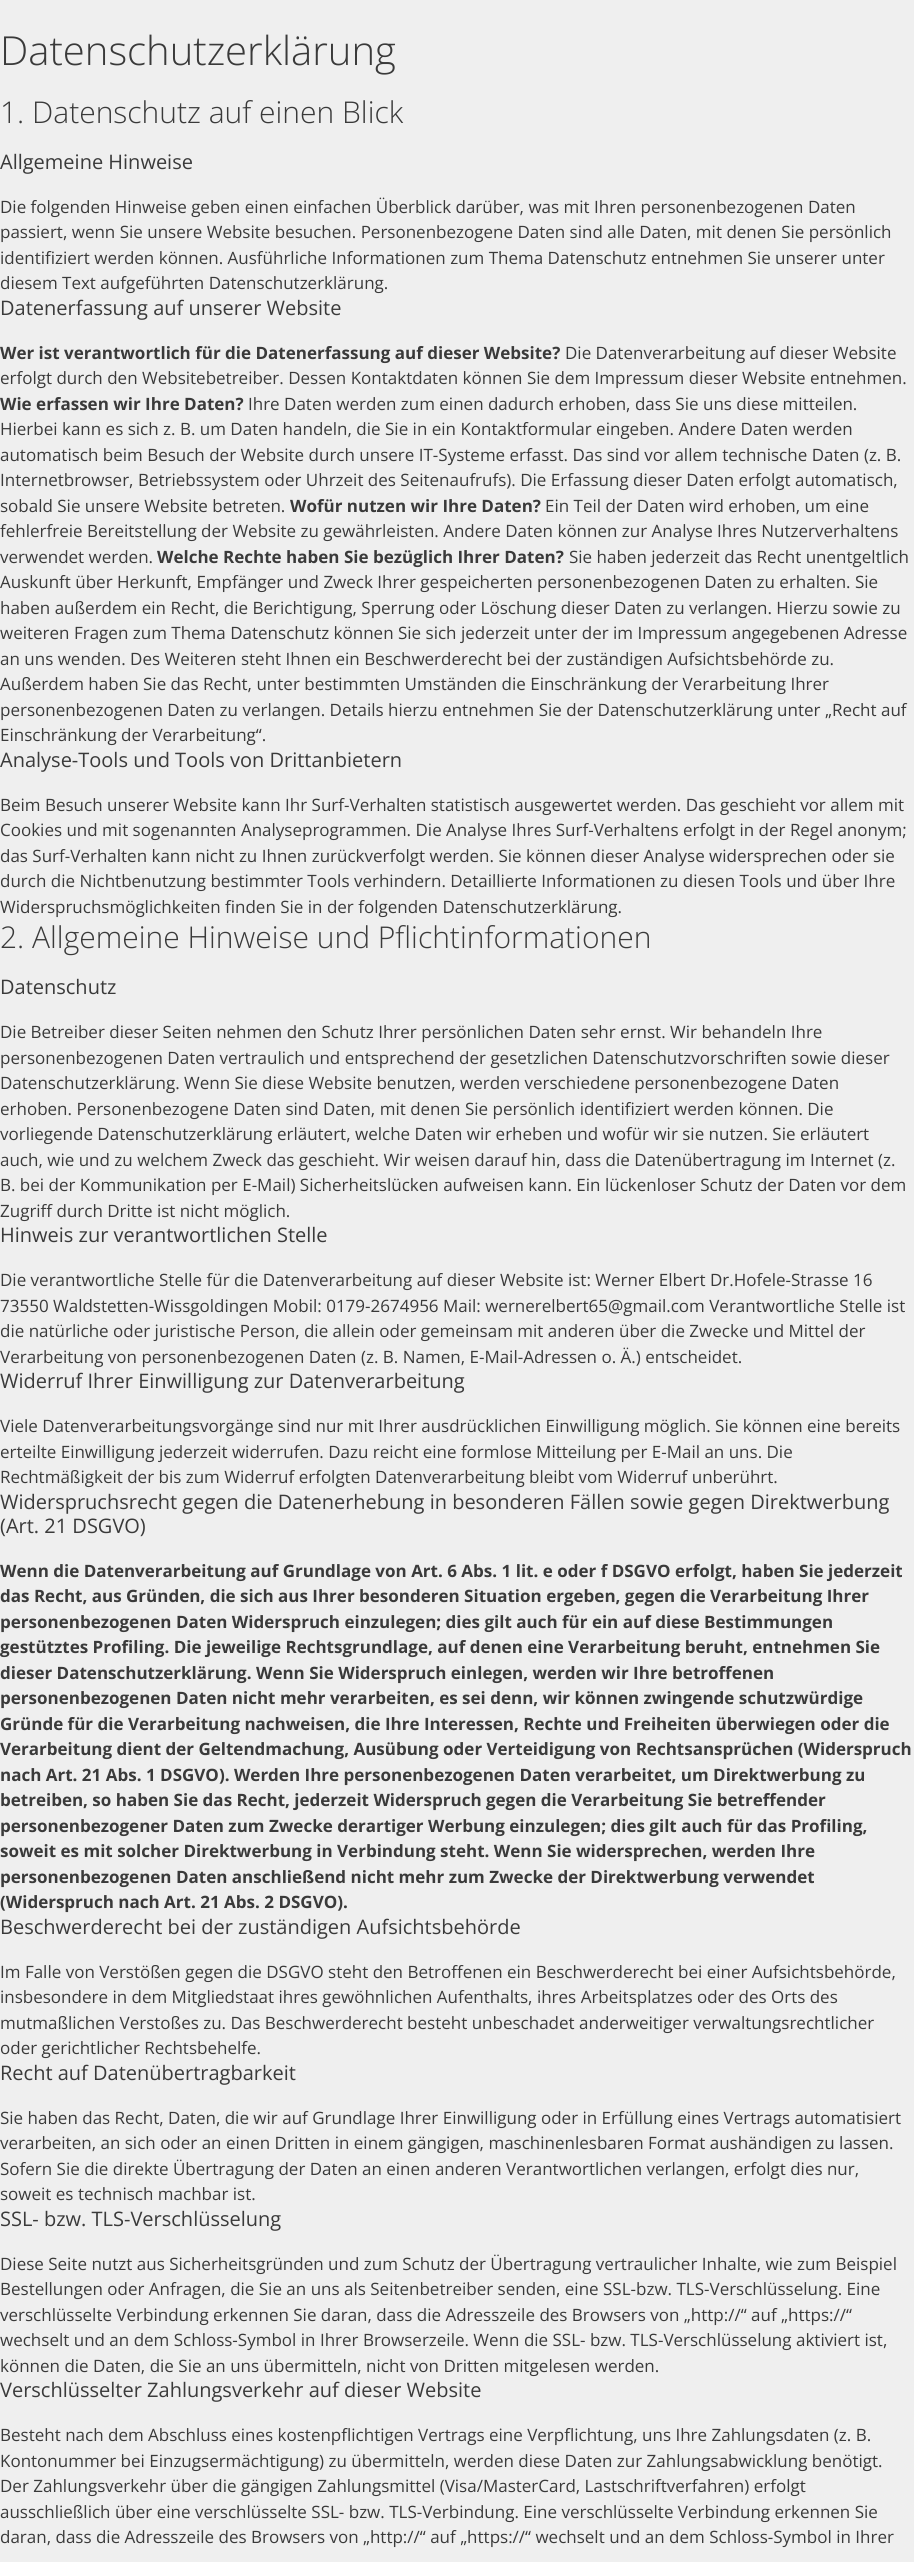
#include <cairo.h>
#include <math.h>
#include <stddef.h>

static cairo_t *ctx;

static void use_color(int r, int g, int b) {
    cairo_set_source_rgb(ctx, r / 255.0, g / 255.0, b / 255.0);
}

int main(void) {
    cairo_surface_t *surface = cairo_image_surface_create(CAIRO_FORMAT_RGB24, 914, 2562);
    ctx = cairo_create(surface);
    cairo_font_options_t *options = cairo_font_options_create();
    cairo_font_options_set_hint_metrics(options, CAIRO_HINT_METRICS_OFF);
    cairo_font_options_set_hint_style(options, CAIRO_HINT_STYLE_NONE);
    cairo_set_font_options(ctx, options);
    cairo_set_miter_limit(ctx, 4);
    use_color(239, 239, 239);
    cairo_paint(ctx);
    cairo_select_font_face(ctx, "Open Sans Light", CAIRO_FONT_SLANT_NORMAL, CAIRO_FONT_WEIGHT_NORMAL);
    cairo_set_font_size(ctx, 40);
    use_color(58, 58, 58);
    cairo_move_to(ctx, 0, 65);
    cairo_show_text(ctx, "Datenschutzerklärung");
    cairo_set_font_size(ctx, 30);
    cairo_move_to(ctx, 0, 123);
    cairo_show_text(ctx, "1. Datenschutz auf einen Blick");
    cairo_select_font_face(ctx, "Open Sans", CAIRO_FONT_SLANT_NORMAL, CAIRO_FONT_WEIGHT_NORMAL);
    cairo_set_font_size(ctx, 20);
    cairo_move_to(ctx, 0, 169);
    cairo_show_text(ctx, "Allgemeine Hinweise");
    cairo_set_font_size(ctx, 17);
    cairo_move_to(ctx, 0, 213);
    cairo_show_text(ctx, "Die folgenden Hinweise geben einen einfachen Überblick darüber, was mit Ihren personenbezogenen Daten");
    cairo_move_to(ctx, 0, 238);
    cairo_show_text(ctx, "passiert, wenn Sie unsere Website besuchen. Personenbezogene Daten sind alle Daten, mit denen Sie persönlich");
    cairo_move_to(ctx, 0, 264);
    cairo_show_text(ctx, "identifiziert werden können. Ausführliche Informationen zum Thema Datenschutz entnehmen Sie unserer unter");
    cairo_move_to(ctx, 0, 289);
    cairo_show_text(ctx, "diesem Text aufgeführten Datenschutzerklärung.");
    cairo_set_font_size(ctx, 20);
    cairo_move_to(ctx, 0, 315);
    cairo_show_text(ctx, "Datenerfassung auf unserer Website");
    cairo_select_font_face(ctx, "Open Sans", CAIRO_FONT_SLANT_NORMAL, CAIRO_FONT_WEIGHT_BOLD);
    cairo_set_font_size(ctx, 17);
    cairo_move_to(ctx, 0, 359);
    cairo_show_text(ctx, "Wer ist verantwortlich für die Datenerfassung auf dieser Website?");
    cairo_select_font_face(ctx, "Open Sans", CAIRO_FONT_SLANT_NORMAL, CAIRO_FONT_WEIGHT_NORMAL);
    cairo_move_to(ctx, 565, 359);
    cairo_show_text(ctx, "Die Datenverarbeitung auf dieser Website");
    cairo_move_to(ctx, 0, 384);
    cairo_show_text(ctx, "erfolgt durch den Websitebetreiber. Dessen Kontaktdaten können Sie dem Impressum dieser Website entnehmen.");
    cairo_select_font_face(ctx, "Open Sans", CAIRO_FONT_SLANT_NORMAL, CAIRO_FONT_WEIGHT_BOLD);
    cairo_move_to(ctx, 0, 410);
    cairo_show_text(ctx, "Wie erfassen wir Ihre Daten?");
    cairo_select_font_face(ctx, "Open Sans", CAIRO_FONT_SLANT_NORMAL, CAIRO_FONT_WEIGHT_NORMAL);
    cairo_move_to(ctx, 248, 410);
    cairo_show_text(ctx, "Ihre Daten werden zum einen dadurch erhoben, dass Sie uns diese mitteilen.");
    cairo_move_to(ctx, 0, 435);
    cairo_show_text(ctx, "Hierbei kann es sich z. B. um Daten handeln, die Sie in ein Kontaktformular eingeben. Andere Daten werden");
    cairo_move_to(ctx, 0, 461);
    cairo_show_text(ctx, "automatisch beim Besuch der Website durch unsere IT-Systeme erfasst. Das sind vor allem technische Daten (z. B.");
    cairo_move_to(ctx, 0, 486);
    cairo_show_text(ctx, "Internetbrowser, Betriebssystem oder Uhrzeit des Seitenaufrufs). Die Erfassung dieser Daten erfolgt automatisch,");
    cairo_move_to(ctx, 0, 512);
    cairo_show_text(ctx, "sobald Sie unsere Website betreten.");
    cairo_select_font_face(ctx, "Open Sans", CAIRO_FONT_SLANT_NORMAL, CAIRO_FONT_WEIGHT_BOLD);
    cairo_move_to(ctx, 290, 512);
    cairo_show_text(ctx, "Wofür nutzen wir Ihre Daten?");
    cairo_select_font_face(ctx, "Open Sans", CAIRO_FONT_SLANT_NORMAL, CAIRO_FONT_WEIGHT_NORMAL);
    cairo_move_to(ctx, 545, 512);
    cairo_show_text(ctx, "Ein Teil der Daten wird erhoben, um eine");
    cairo_move_to(ctx, 0, 537);
    cairo_show_text(ctx, "fehlerfreie Bereitstellung der Website zu gewährleisten. Andere Daten können zur Analyse Ihres Nutzerverhaltens");
    cairo_move_to(ctx, 0, 563);
    cairo_show_text(ctx, "verwendet werden.");
    cairo_select_font_face(ctx, "Open Sans", CAIRO_FONT_SLANT_NORMAL, CAIRO_FONT_WEIGHT_BOLD);
    cairo_move_to(ctx, 157, 563);
    cairo_show_text(ctx, "Welche Rechte haben Sie bezüglich Ihrer Daten?");
    cairo_select_font_face(ctx, "Open Sans", CAIRO_FONT_SLANT_NORMAL, CAIRO_FONT_WEIGHT_NORMAL);
    cairo_move_to(ctx, 569, 563);
    cairo_show_text(ctx, "Sie haben jederzeit das Recht unentgeltlich");
    cairo_move_to(ctx, 0, 588);
    cairo_show_text(ctx, "Auskunft über Herkunft, Empfänger und Zweck Ihrer gespeicherten personenbezogenen Daten zu erhalten. Sie");
    cairo_move_to(ctx, 0, 614);
    cairo_show_text(ctx, "haben außerdem ein Recht, die Berichtigung, Sperrung oder Löschung dieser Daten zu verlangen. Hierzu sowie zu");
    cairo_move_to(ctx, 0, 639);
    cairo_show_text(ctx, "weiteren Fragen zum Thema Datenschutz können Sie sich jederzeit unter der im Impressum angegebenen Adresse");
    cairo_move_to(ctx, 0, 665);
    cairo_show_text(ctx, "an uns wenden. Des Weiteren steht Ihnen ein Beschwerderecht bei der zuständigen Aufsichtsbehörde zu.");
    cairo_move_to(ctx, 0, 690);
    cairo_show_text(ctx, "Außerdem haben Sie das Recht, unter bestimmten Umständen die Einschränkung der Verarbeitung Ihrer");
    cairo_move_to(ctx, 0, 716);
    cairo_show_text(ctx, "personenbezogenen Daten zu verlangen. Details hierzu entnehmen Sie der Datenschutzerklärung unter „Recht auf");
    cairo_move_to(ctx, 0, 741);
    cairo_show_text(ctx, "Einschränkung der Verarbeitung“.");
    cairo_set_font_size(ctx, 20);
    cairo_move_to(ctx, 0, 767);
    cairo_show_text(ctx, "Analyse-Tools und Tools von Drittanbietern");
    cairo_set_font_size(ctx, 17);
    cairo_move_to(ctx, 0, 811);
    cairo_show_text(ctx, "Beim Besuch unserer Website kann Ihr Surf-Verhalten statistisch ausgewertet werden. Das geschieht vor allem mit");
    cairo_move_to(ctx, 0, 836);
    cairo_show_text(ctx, "Cookies und mit sogenannten Analyseprogrammen. Die Analyse Ihres Surf-Verhaltens erfolgt in der Regel anonym;");
    cairo_move_to(ctx, 0, 862);
    cairo_show_text(ctx, "das Surf-Verhalten kann nicht zu Ihnen zurückverfolgt werden. Sie können dieser Analyse widersprechen oder sie");
    cairo_move_to(ctx, 0, 887);
    cairo_show_text(ctx, "durch die Nichtbenutzung bestimmter Tools verhindern. Detaillierte Informationen zu diesen Tools und über Ihre");
    cairo_move_to(ctx, 0, 913);
    cairo_show_text(ctx, "Widerspruchsmöglichkeiten finden Sie in der folgenden Datenschutzerklärung.");
    cairo_select_font_face(ctx, "Open Sans Light", CAIRO_FONT_SLANT_NORMAL, CAIRO_FONT_WEIGHT_NORMAL);
    cairo_set_font_size(ctx, 30);
    cairo_move_to(ctx, 0, 948);
    cairo_show_text(ctx, "2. Allgemeine Hinweise und Pflichtinformationen");
    cairo_select_font_face(ctx, "Open Sans", CAIRO_FONT_SLANT_NORMAL, CAIRO_FONT_WEIGHT_NORMAL);
    cairo_set_font_size(ctx, 20);
    cairo_move_to(ctx, 0, 994);
    cairo_show_text(ctx, "Datenschutz");
    cairo_set_font_size(ctx, 17);
    cairo_move_to(ctx, 0, 1038);
    cairo_show_text(ctx, "Die Betreiber dieser Seiten nehmen den Schutz Ihrer persönlichen Daten sehr ernst. Wir behandeln Ihre");
    cairo_move_to(ctx, 0, 1064);
    cairo_show_text(ctx, "personenbezogenen Daten vertraulich und entsprechend der gesetzlichen Datenschutzvorschriften sowie dieser");
    cairo_move_to(ctx, 0, 1089);
    cairo_show_text(ctx, "Datenschutzerklärung. Wenn Sie diese Website benutzen, werden verschiedene personenbezogene Daten");
    cairo_move_to(ctx, 0, 1115);
    cairo_show_text(ctx, "erhoben. Personenbezogene Daten sind Daten, mit denen Sie persönlich identifiziert werden können. Die");
    cairo_move_to(ctx, 0, 1140);
    cairo_show_text(ctx, "vorliegende Datenschutzerklärung erläutert, welche Daten wir erheben und wofür wir sie nutzen. Sie erläutert");
    cairo_move_to(ctx, 0, 1166);
    cairo_show_text(ctx, "auch, wie und zu welchem Zweck das geschieht. Wir weisen darauf hin, dass die Datenübertragung im Internet (z.");
    cairo_move_to(ctx, 0, 1191);
    cairo_show_text(ctx, "B. bei der Kommunikation per E-Mail) Sicherheitslücken aufweisen kann. Ein lückenloser Schutz der Daten vor dem");
    cairo_move_to(ctx, 0, 1217);
    cairo_show_text(ctx, "Zugriff durch Dritte ist nicht möglich.");
    cairo_set_font_size(ctx, 20);
    cairo_move_to(ctx, 0, 1242);
    cairo_show_text(ctx, "Hinweis zur verantwortlichen Stelle");
    cairo_set_font_size(ctx, 17);
    cairo_move_to(ctx, 0, 1286);
    cairo_show_text(ctx, "Die verantwortliche Stelle für die Datenverarbeitung auf dieser Website ist: Werner Elbert Dr.Hofele-Strasse 16");
    cairo_move_to(ctx, 0, 1312);
    cairo_show_text(ctx, "73550 Waldstetten-Wissgoldingen Mobil: 0179-2674956 Mail: wernerelbert65@gmail.com Verantwortliche Stelle ist");
    cairo_move_to(ctx, 0, 1337);
    cairo_show_text(ctx, "die natürliche oder juristische Person, die allein oder gemeinsam mit anderen über die Zwecke und Mittel der");
    cairo_move_to(ctx, 0, 1363);
    cairo_show_text(ctx, "Verarbeitung von personenbezogenen Daten (z. B. Namen, E-Mail-Adressen o. Ä.) entscheidet.");
    cairo_set_font_size(ctx, 20);
    cairo_move_to(ctx, 0, 1388);
    cairo_show_text(ctx, "Widerruf Ihrer Einwilligung zur Datenverarbeitung");
    cairo_set_font_size(ctx, 17);
    cairo_move_to(ctx, 0, 1432);
    cairo_show_text(ctx, "Viele Datenverarbeitungsvorgänge sind nur mit Ihrer ausdrücklichen Einwilligung möglich. Sie können eine bereits");
    cairo_move_to(ctx, 0, 1458);
    cairo_show_text(ctx, "erteilte Einwilligung jederzeit widerrufen. Dazu reicht eine formlose Mitteilung per E-Mail an uns. Die");
    cairo_move_to(ctx, 0, 1483);
    cairo_show_text(ctx, "Rechtmäßigkeit der bis zum Widerruf erfolgten Datenverarbeitung bleibt vom Widerruf unberührt.");
    cairo_set_font_size(ctx, 20);
    cairo_move_to(ctx, 0, 1509);
    cairo_show_text(ctx, "Widerspruchsrecht gegen die Datenerhebung in besonderen Fällen sowie gegen Direktwerbung");
    cairo_move_to(ctx, 0, 1533);
    cairo_show_text(ctx, "(Art. 21 DSGVO)");
    cairo_select_font_face(ctx, "Open Sans", CAIRO_FONT_SLANT_NORMAL, CAIRO_FONT_WEIGHT_BOLD);
    cairo_set_font_size(ctx, 17);
    cairo_move_to(ctx, 0, 1577);
    cairo_show_text(ctx, "Wenn die Datenverarbeitung auf Grundlage von Art. 6 Abs. 1 lit. e oder f DSGVO erfolgt, haben Sie jederzeit");
    cairo_move_to(ctx, 0, 1602);
    cairo_show_text(ctx, "das Recht, aus Gründen, die sich aus Ihrer besonderen Situation ergeben, gegen die Verarbeitung Ihrer");
    cairo_move_to(ctx, 0, 1628);
    cairo_show_text(ctx, "personenbezogenen Daten Widerspruch einzulegen; dies gilt auch für ein auf diese Bestimmungen");
    cairo_move_to(ctx, 0, 1653);
    cairo_show_text(ctx, "gestütztes Profiling. Die jeweilige Rechtsgrundlage, auf denen eine Verarbeitung beruht, entnehmen Sie");
    cairo_move_to(ctx, 0, 1679);
    cairo_show_text(ctx, "dieser Datenschutzerklärung. Wenn Sie Widerspruch einlegen, werden wir Ihre betroffenen");
    cairo_move_to(ctx, 0, 1704);
    cairo_show_text(ctx, "personenbezogenen Daten nicht mehr verarbeiten, es sei denn, wir können zwingende schutzwürdige");
    cairo_move_to(ctx, 0, 1730);
    cairo_show_text(ctx, "Gründe für die Verarbeitung nachweisen, die Ihre Interessen, Rechte und Freiheiten überwiegen oder die");
    cairo_move_to(ctx, 0, 1755);
    cairo_show_text(ctx, "Verarbeitung dient der Geltendmachung, Ausübung oder Verteidigung von Rechtsansprüchen (Widerspruch");
    cairo_move_to(ctx, 0, 1781);
    cairo_show_text(ctx, "nach Art. 21 Abs. 1 DSGVO). Werden Ihre personenbezogenen Daten verarbeitet, um Direktwerbung zu");
    cairo_move_to(ctx, 0, 1806);
    cairo_show_text(ctx, "betreiben, so haben Sie das Recht, jederzeit Widerspruch gegen die Verarbeitung Sie betreffender");
    cairo_move_to(ctx, 0, 1832);
    cairo_show_text(ctx, "personenbezogener Daten zum Zwecke derartiger Werbung einzulegen; dies gilt auch für das Profiling,");
    cairo_move_to(ctx, 0, 1857);
    cairo_show_text(ctx, "soweit es mit solcher Direktwerbung in Verbindung steht. Wenn Sie widersprechen, werden Ihre");
    cairo_move_to(ctx, 0, 1883);
    cairo_show_text(ctx, "personenbezogenen Daten anschließend nicht mehr zum Zwecke der Direktwerbung verwendet");
    cairo_move_to(ctx, 0, 1908);
    cairo_show_text(ctx, "(Widerspruch nach Art. 21 Abs. 2 DSGVO).");
    cairo_select_font_face(ctx, "Open Sans", CAIRO_FONT_SLANT_NORMAL, CAIRO_FONT_WEIGHT_NORMAL);
    cairo_set_font_size(ctx, 20);
    cairo_move_to(ctx, 0, 1934);
    cairo_show_text(ctx, "Beschwerderecht bei der zuständigen Aufsichtsbehörde");
    cairo_set_font_size(ctx, 17);
    cairo_move_to(ctx, 0, 1978);
    cairo_show_text(ctx, "Im Falle von Verstößen gegen die DSGVO steht den Betroffenen ein Beschwerderecht bei einer Aufsichtsbehörde,");
    cairo_move_to(ctx, 0, 2003);
    cairo_show_text(ctx, "insbesondere in dem Mitgliedstaat ihres gewöhnlichen Aufenthalts, ihres Arbeitsplatzes oder des Orts des");
    cairo_move_to(ctx, 0, 2029);
    cairo_show_text(ctx, "mutmaßlichen Verstoßes zu. Das Beschwerderecht besteht unbeschadet anderweitiger verwaltungsrechtlicher");
    cairo_move_to(ctx, 0, 2054);
    cairo_show_text(ctx, "oder gerichtlicher Rechtsbehelfe.");
    cairo_set_font_size(ctx, 20);
    cairo_move_to(ctx, 0, 2080);
    cairo_show_text(ctx, "Recht auf Datenübertragbarkeit");
    cairo_set_font_size(ctx, 17);
    cairo_move_to(ctx, 0, 2124);
    cairo_show_text(ctx, "Sie haben das Recht, Daten, die wir auf Grundlage Ihrer Einwilligung oder in Erfüllung eines Vertrags automatisiert");
    cairo_move_to(ctx, 0, 2149);
    cairo_show_text(ctx, "verarbeiten, an sich oder an einen Dritten in einem gängigen, maschinenlesbaren Format aushändigen zu lassen.");
    cairo_move_to(ctx, 0, 2175);
    cairo_show_text(ctx, "Sofern Sie die direkte Übertragung der Daten an einen anderen Verantwortlichen verlangen, erfolgt dies nur,");
    cairo_move_to(ctx, 0, 2200);
    cairo_show_text(ctx, "soweit es technisch machbar ist.");
    cairo_set_font_size(ctx, 20);
    cairo_move_to(ctx, 0, 2226);
    cairo_show_text(ctx, "SSL- bzw. TLS-Verschlüsselung");
    cairo_set_font_size(ctx, 17);
    cairo_move_to(ctx, 0, 2270);
    cairo_show_text(ctx, "Diese Seite nutzt aus Sicherheitsgründen und zum Schutz der Übertragung vertraulicher Inhalte, wie zum Beispiel");
    cairo_move_to(ctx, 0, 2295);
    cairo_show_text(ctx, "Bestellungen oder Anfragen, die Sie an uns als Seitenbetreiber senden, eine SSL-bzw. TLS-Verschlüsselung. Eine");
    cairo_move_to(ctx, 0, 2321);
    cairo_show_text(ctx, "verschlüsselte Verbindung erkennen Sie daran, dass die Adresszeile des Browsers von „http://“ auf „https://“");
    cairo_move_to(ctx, 0, 2346);
    cairo_show_text(ctx, "wechselt und an dem Schloss-Symbol in Ihrer Browserzeile. Wenn die SSL- bzw. TLS-Verschlüsselung aktiviert ist,");
    cairo_move_to(ctx, 0, 2372);
    cairo_show_text(ctx, "können die Daten, die Sie an uns übermitteln, nicht von Dritten mitgelesen werden.");
    cairo_set_font_size(ctx, 20);
    cairo_move_to(ctx, 0, 2397);
    cairo_show_text(ctx, "Verschlüsselter Zahlungsverkehr auf dieser Website");
    cairo_set_font_size(ctx, 17);
    cairo_move_to(ctx, 0, 2441);
    cairo_show_text(ctx, "Besteht nach dem Abschluss eines kostenpflichtigen Vertrags eine Verpflichtung, uns Ihre Zahlungsdaten (z. B.");
    cairo_move_to(ctx, 0, 2467);
    cairo_show_text(ctx, "Kontonummer bei Einzugsermächtigung) zu übermitteln, werden diese Daten zur Zahlungsabwicklung benötigt.");
    cairo_move_to(ctx, 0, 2492);
    cairo_show_text(ctx, "Der Zahlungsverkehr über die gängigen Zahlungsmittel (Visa/MasterCard, Lastschriftverfahren) erfolgt");
    cairo_move_to(ctx, 0, 2518);
    cairo_show_text(ctx, "ausschließlich über eine verschlüsselte SSL- bzw. TLS-Verbindung. Eine verschlüsselte Verbindung erkennen Sie");
    cairo_move_to(ctx, 0, 2543);
    cairo_show_text(ctx, "daran, dass die Adresszeile des Browsers von „http://“ auf „https://“ wechselt und an dem Schloss-Symbol in Ihrer");
    cairo_surface_write_to_png(surface, "result.png");
    cairo_font_options_destroy(options);
    cairo_destroy(ctx);
    cairo_surface_destroy(surface);
    return 0;
}
